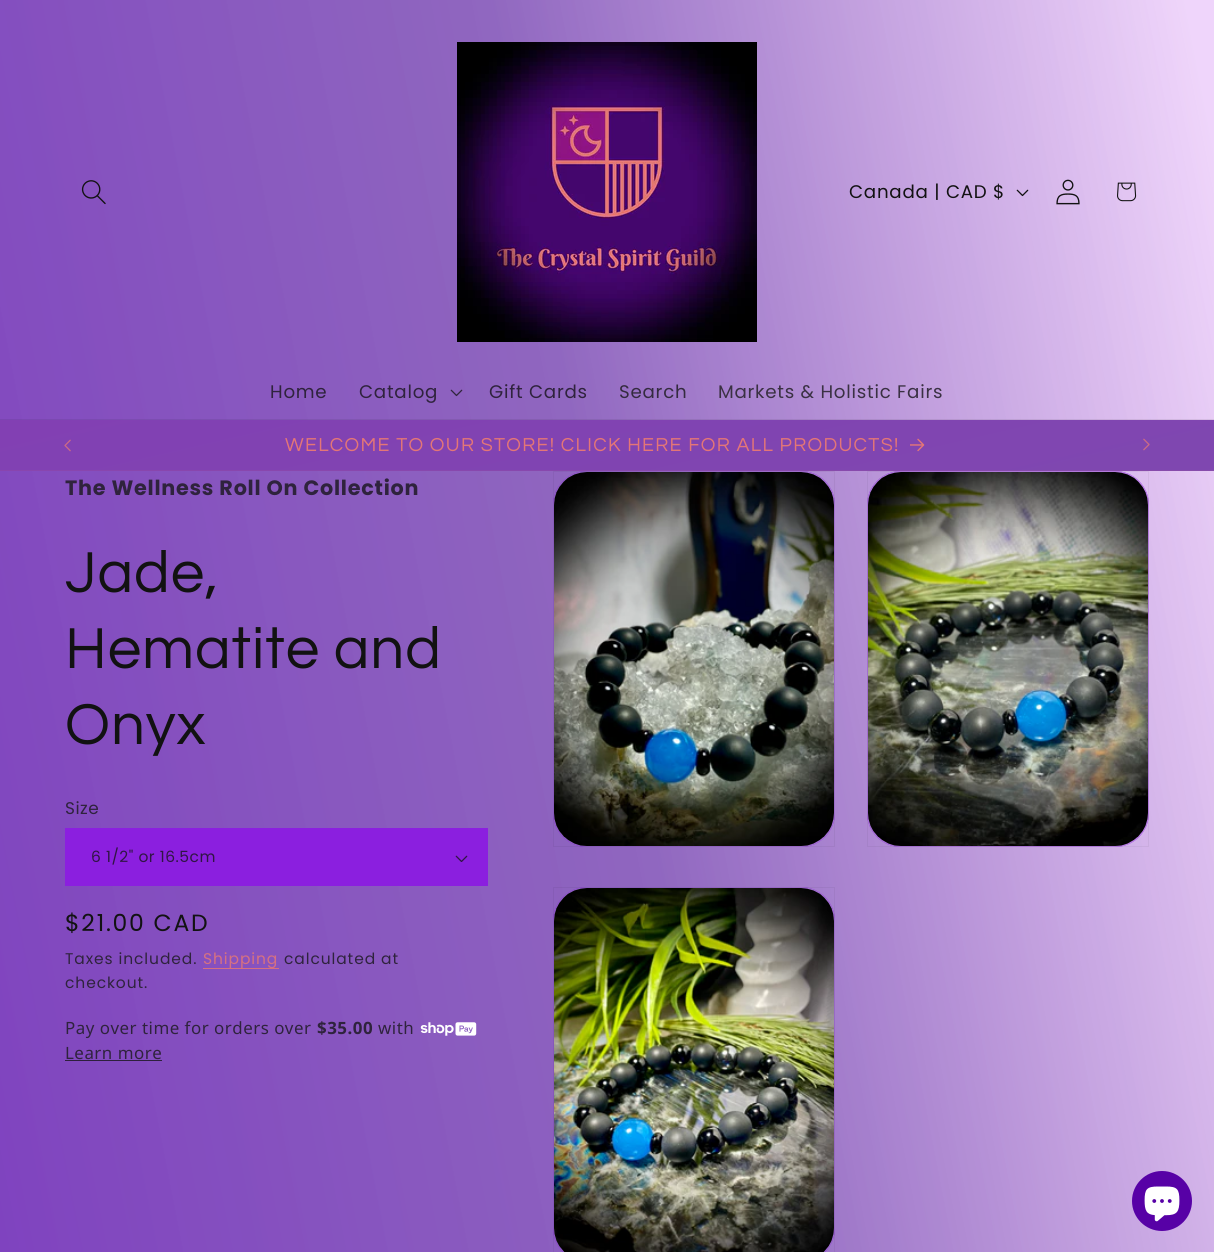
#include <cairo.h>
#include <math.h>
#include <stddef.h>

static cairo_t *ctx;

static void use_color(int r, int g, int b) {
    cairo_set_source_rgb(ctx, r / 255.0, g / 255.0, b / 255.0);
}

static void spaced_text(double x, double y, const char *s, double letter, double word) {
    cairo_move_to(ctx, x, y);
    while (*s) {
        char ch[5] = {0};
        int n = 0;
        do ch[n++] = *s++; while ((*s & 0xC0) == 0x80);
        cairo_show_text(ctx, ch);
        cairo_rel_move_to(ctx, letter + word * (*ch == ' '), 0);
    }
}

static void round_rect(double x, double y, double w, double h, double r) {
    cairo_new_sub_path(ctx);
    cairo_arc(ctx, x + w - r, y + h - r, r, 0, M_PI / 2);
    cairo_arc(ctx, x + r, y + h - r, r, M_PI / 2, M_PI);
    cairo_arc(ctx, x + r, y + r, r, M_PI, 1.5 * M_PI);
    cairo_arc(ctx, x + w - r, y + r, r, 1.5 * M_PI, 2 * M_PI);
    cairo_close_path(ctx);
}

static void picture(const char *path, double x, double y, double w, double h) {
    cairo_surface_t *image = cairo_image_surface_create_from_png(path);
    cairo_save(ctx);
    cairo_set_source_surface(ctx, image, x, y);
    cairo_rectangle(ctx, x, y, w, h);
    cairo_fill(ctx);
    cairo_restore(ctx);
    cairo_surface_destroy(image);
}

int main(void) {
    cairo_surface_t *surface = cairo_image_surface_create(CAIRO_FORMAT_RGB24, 1214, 1252);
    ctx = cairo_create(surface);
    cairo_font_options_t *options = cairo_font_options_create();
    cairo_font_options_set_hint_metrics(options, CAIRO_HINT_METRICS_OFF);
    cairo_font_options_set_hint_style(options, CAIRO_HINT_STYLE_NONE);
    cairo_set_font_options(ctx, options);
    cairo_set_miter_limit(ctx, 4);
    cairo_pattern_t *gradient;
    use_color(255, 255, 255);
    cairo_paint(ctx);
    gradient = cairo_pattern_create_linear(-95, 762, 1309, 490);
    cairo_pattern_add_color_stop_rgba(gradient, 0, 0.498, 0.263, 0.749, 1);
    cairo_pattern_add_color_stop_rgba(gradient, 0.5, 0.592, 0.443, 0.769, 1);
    cairo_pattern_add_color_stop_rgba(gradient, 0.98, 0.957, 0.886, 0.988, 1);
    cairo_set_source(ctx, gradient);
    cairo_pattern_destroy(gradient);
    cairo_rectangle(ctx, 0, 0, 1214, 1252);
    cairo_fill(ctx);
    gradient = cairo_pattern_create_linear(-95, 762, 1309, 490);
    cairo_pattern_add_color_stop_rgba(gradient, 0, 0.498, 0.263, 0.749, 1);
    cairo_pattern_add_color_stop_rgba(gradient, 0.5, 0.561, 0.4, 0.749, 0.93);
    cairo_pattern_add_color_stop_rgba(gradient, 0.98, 0.922, 0.796, 0.976, 0.57);
    cairo_set_source(ctx, gradient);
    cairo_pattern_destroy(gradient);
    cairo_rectangle(ctx, 0, 0, 1214, 420);
    cairo_fill(ctx);
    cairo_set_source_rgba(ctx, 0.071, 0.071, 0.071, 0.08);
    cairo_rectangle(ctx, 0, 419, 1214, 1);
    cairo_fill(ctx);
    picture("img1.png", 81, 180, 25, 25);
    picture("img2.png", 457, 42, 300, 300);
    cairo_select_font_face(ctx, "Poppins", CAIRO_FONT_SLANT_NORMAL, CAIRO_FONT_WEIGHT_NORMAL);
    cairo_set_font_size(ctx, 18.25);
    use_color(18, 18, 18);
    spaced_text(849, 198, "Canada | CAD $", 0.75, 0);
    picture("img3.png", 1016, 189, 13, 8);
    picture("img4.png", 1056, 179, 24, 26);
    picture("img5.png", 1117, 182, 20, 20);
    use_color(47, 35, 61);
    spaced_text(270, 398, "Home", 0.75, 0);
    spaced_text(359, 398, "Catalog", 0.75, 0);
    picture("img6.png", 450, 389, 13, 8);
    spaced_text(489, 398, "Gift Cards", 0.75, 0);
    use_color(52, 43, 63);
    spaced_text(619, 398, "Search", 0.75, 0);
    use_color(58, 49, 67);
    spaced_text(718, 398, "Markets & Holistic Fairs", 0.75, 0);
    gradient = cairo_pattern_create_linear(439, -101, 775, 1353);
    cairo_pattern_add_color_stop_rgba(gradient, 0, 0.522, 0.212, 0.718, 1);
    cairo_pattern_add_color_stop_rgba(gradient, 0.5, 0.498, 0.282, 0.69, 1);
    cairo_pattern_add_color_stop_rgba(gradient, 1, 0.188, 0.569, 0.827, 1);
    cairo_set_source(ctx, gradient);
    cairo_pattern_destroy(gradient);
    cairo_rectangle(ctx, 0, 420, 1214, 50);
    cairo_fill(ctx);
    gradient = cairo_pattern_create_linear(439, -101, 775, 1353);
    cairo_pattern_add_color_stop_rgba(gradient, 0, 0.553, 0.231, 0.698, 1);
    cairo_pattern_add_color_stop_rgba(gradient, 0.5, 0.529, 0.298, 0.671, 1);
    cairo_pattern_add_color_stop_rgba(gradient, 1, 0.243, 0.561, 0.8, 1);
    cairo_set_source(ctx, gradient);
    cairo_pattern_destroy(gradient);
    cairo_rectangle(ctx, 0, 470, 1214, 1);
    cairo_fill(ctx);
    picture("img7.png", 64, 439, 7, 13);
    cairo_select_font_face(ctx, "Questrial", CAIRO_FONT_SLANT_NORMAL, CAIRO_FONT_WEIGHT_NORMAL);
    cairo_set_font_size(ctx, 19.5);
    use_color(228, 118, 118);
    spaced_text(285, 451, "WELCOME TO OUR STORE! CLICK HERE FOR ALL PRODUCTS!", 1.3, 0);
    picture("img8.png", 910, 438, 15, 14);
    picture("img9.png", 1143, 438, 7, 13);
    gradient = cairo_pattern_create_linear(-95, 762, 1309, 490);
    cairo_pattern_add_color_stop_rgba(gradient, 0, 0.498, 0.263, 0.749, 1);
    cairo_pattern_add_color_stop_rgba(gradient, 0.5, 0.561, 0.4, 0.749, 0.93);
    cairo_pattern_add_color_stop_rgba(gradient, 0.98, 0.922, 0.796, 0.976, 0.57);
    cairo_set_source(ctx, gradient);
    cairo_pattern_destroy(gradient);
    cairo_rectangle(ctx, 0, 471, 1214, 781);
    cairo_fill(ctx);
    cairo_select_font_face(ctx, "Poppins", CAIRO_FONT_SLANT_NORMAL, CAIRO_FONT_WEIGHT_BOLD);
    cairo_set_font_size(ctx, 20.75);
    use_color(47, 35, 61);
    spaced_text(65, 495, "The Wellness Roll On Collection", 0.75, 0);
    cairo_select_font_face(ctx, "Questrial", CAIRO_FONT_SLANT_NORMAL, CAIRO_FONT_WEIGHT_NORMAL);
    cairo_set_font_size(ctx, 60);
    use_color(18, 18, 18);
    spaced_text(65, 592, "Jade,", 0.9, 0);
    spaced_text(65, 668, "Hematite and", 0.9, 0);
    spaced_text(65, 744, "Onyx", 0.9, 0);
    cairo_select_font_face(ctx, "Poppins", CAIRO_FONT_SLANT_NORMAL, CAIRO_FONT_WEIGHT_NORMAL);
    cairo_set_font_size(ctx, 16.9);
    use_color(47, 35, 61);
    spaced_text(65, 814, "Size", 0.5, 0);
    use_color(139, 31, 223);
    cairo_rectangle(ctx, 65, 828, 423, 58);
    cairo_fill(ctx);
    cairo_set_font_size(ctx, 15.5);
    use_color(48, 21, 69);
    spaced_text(91, 862, "6 1/2\" or 16.5cm", 0.5, 0);
    picture("img10.png", 455, 855, 13, 7);
    cairo_set_font_size(ctx, 23.5);
    use_color(18, 18, 18);
    spaced_text(65, 931, "$21.00 CAD", 1.75, 0);
    cairo_set_font_size(ctx, 15.5);
    use_color(47, 35, 61);
    spaced_text(65, 964, "Taxes included.", 0.9, 0);
    cairo_set_source_rgba(ctx, 0.894, 0.463, 0.463, 0.85);
    cairo_rectangle(ctx, 203, 968, 76, 1);
    cairo_fill(ctx);
    use_color(214, 113, 129);
    spaced_text(203, 964, "Shipping", 0.9, 0);
    use_color(47, 35, 61);
    spaced_text(284, 964, "calculated at", 0.9, 0);
    spaced_text(65, 988, "checkout.", 0.9, 0);
    cairo_select_font_face(ctx, "Noto Sans", CAIRO_FONT_SLANT_NORMAL, CAIRO_FONT_WEIGHT_NORMAL);
    cairo_set_font_size(ctx, 16.9);
    spaced_text(65, 1034, "Pay over time for orders over", 0.5, 0);
    cairo_select_font_face(ctx, "Noto Sans", CAIRO_FONT_SLANT_NORMAL, CAIRO_FONT_WEIGHT_BOLD);
    spaced_text(317, 1034, "$35.00", 0.5, 0);
    cairo_select_font_face(ctx, "Noto Sans", CAIRO_FONT_SLANT_NORMAL, CAIRO_FONT_WEIGHT_NORMAL);
    spaced_text(378, 1034, "with", 0.5, 0);
    picture("img11.png", 420, 1022, 57, 14);
    spaced_text(65, 1059, "Learn more", 0.5, 0);
    cairo_set_source_rgba(ctx, 0.071, 0.071, 0.071, 0.75);
    cairo_rectangle(ctx, 65, 1060, 97, 1);
    cairo_fill(ctx);
    use_color(139, 31, 223);
    round_rect(553, 471, 282, 376, 34);
    cairo_fill(ctx);
    gradient = cairo_pattern_create_linear(-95, 762, 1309, 490);
    cairo_pattern_add_color_stop_rgba(gradient, 0, 0.498, 0.263, 0.749, 1);
    cairo_pattern_add_color_stop_rgba(gradient, 0.5, 0.561, 0.4, 0.749, 0.93);
    cairo_pattern_add_color_stop_rgba(gradient, 0.98, 0.922, 0.796, 0.976, 0.57);
    cairo_set_source(ctx, gradient);
    cairo_pattern_destroy(gradient);
    round_rect(553, 471, 282, 376, 34);
    cairo_fill(ctx);
    cairo_rectangle(ctx, 553.5, 471.5, 281, 375);
    cairo_set_source_rgba(ctx, 0.071, 0.071, 0.071, 0.05);
    cairo_set_line_width(ctx, 1);
    cairo_stroke(ctx);
    picture("img12.png", 554, 472, 280, 374);
    use_color(139, 31, 223);
    round_rect(867, 471, 282, 376, 34);
    cairo_fill(ctx);
    gradient = cairo_pattern_create_linear(-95, 762, 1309, 490);
    cairo_pattern_add_color_stop_rgba(gradient, 0, 0.498, 0.263, 0.749, 1);
    cairo_pattern_add_color_stop_rgba(gradient, 0.5, 0.561, 0.4, 0.749, 0.93);
    cairo_pattern_add_color_stop_rgba(gradient, 0.98, 0.922, 0.796, 0.976, 0.57);
    cairo_set_source(ctx, gradient);
    cairo_pattern_destroy(gradient);
    round_rect(867, 471, 282, 376, 34);
    cairo_fill(ctx);
    cairo_rectangle(ctx, 867.5, 471.5, 281, 375);
    cairo_set_source_rgba(ctx, 0.071, 0.071, 0.071, 0.05);
    cairo_stroke(ctx);
    picture("img13.png", 868, 472, 280, 374);
    use_color(139, 31, 223);
    round_rect(553, 887, 282, 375, 34);
    cairo_fill(ctx);
    cairo_save(ctx);
    round_rect(553, 887, 282, 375, 34);
    cairo_clip(ctx);
    gradient = cairo_pattern_create_linear(-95, 762, 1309, 490);
    cairo_pattern_add_color_stop_rgba(gradient, 0, 0.498, 0.263, 0.749, 1);
    cairo_pattern_add_color_stop_rgba(gradient, 0.5, 0.561, 0.4, 0.749, 0.93);
    cairo_pattern_add_color_stop_rgba(gradient, 0.98, 0.922, 0.796, 0.976, 0.57);
    cairo_set_source(ctx, gradient);
    cairo_pattern_destroy(gradient);
    cairo_new_path(ctx);
    cairo_move_to(ctx, 587, 887);
    cairo_line_to(ctx, 801, 887);
    cairo_curve_to(ctx, 820, 887, 835, 902, 835, 921);
    cairo_line_to(ctx, 835, 1252);
    cairo_line_to(ctx, 553, 1252);
    cairo_line_to(ctx, 553, 921);
    cairo_curve_to(ctx, 553, 902, 568, 887, 587, 887);
    cairo_close_path(ctx);
    cairo_fill(ctx);
    cairo_restore(ctx);
    cairo_rectangle(ctx, 553.5, 887.5, 281, 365);
    cairo_set_source_rgba(ctx, 0.071, 0.071, 0.071, 0.05);
    cairo_stroke(ctx);
    picture("img14.png", 554, 888, 280, 364);
    use_color(87, 1, 166);
    cairo_arc(ctx, 1162, 1201, 30, 0, 2 * M_PI);
    cairo_fill(ctx);
    picture("img15.png", 1144, 1186, 36, 36);
    cairo_surface_write_to_png(surface, "result.png");
    cairo_font_options_destroy(options);
    cairo_destroy(ctx);
    cairo_surface_destroy(surface);
    return 0;
}
